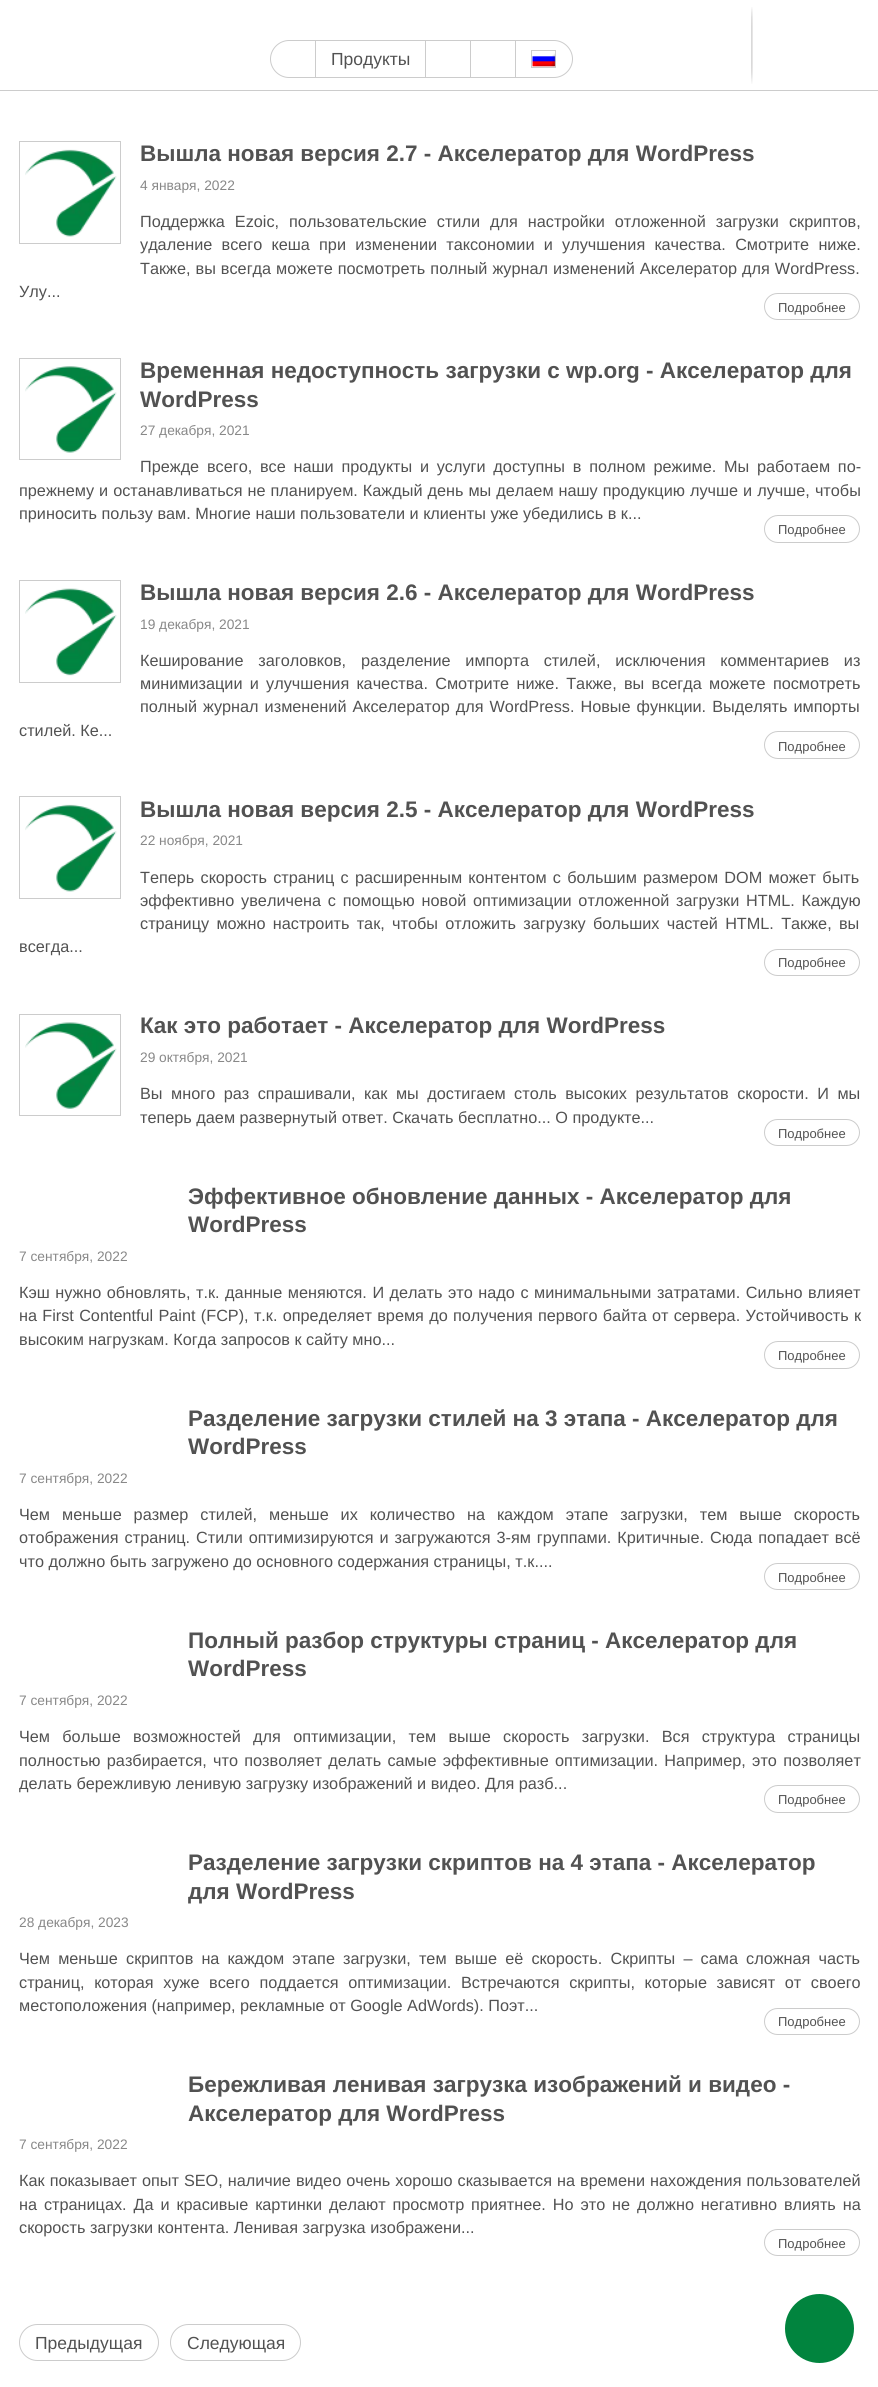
#include <cairo.h>
#include <math.h>
#include <stddef.h>

static cairo_t *ctx;

static void use_color(int r, int g, int b) {
    cairo_set_source_rgb(ctx, r / 255.0, g / 255.0, b / 255.0);
}

static void spaced_text(double x, double y, const char *s, double letter, double word) {
    cairo_move_to(ctx, x, y);
    while (*s) {
        char ch[5] = {0};
        int n = 0;
        do ch[n++] = *s++; while ((*s & 0xC0) == 0x80);
        cairo_show_text(ctx, ch);
        cairo_rel_move_to(ctx, letter + word * (*ch == ' '), 0);
    }
}

static void round_rect(double x, double y, double w, double h, double r) {
    cairo_new_sub_path(ctx);
    cairo_arc(ctx, x + w - r, y + h - r, r, 0, M_PI / 2);
    cairo_arc(ctx, x + r, y + h - r, r, M_PI / 2, M_PI);
    cairo_arc(ctx, x + r, y + r, r, M_PI, 1.5 * M_PI);
    cairo_arc(ctx, x + w - r, y + r, r, 1.5 * M_PI, 2 * M_PI);
    cairo_close_path(ctx);
}

static void picture(const char *path, double x, double y, double w, double h) {
    cairo_surface_t *image = cairo_image_surface_create_from_png(path);
    cairo_save(ctx);
    cairo_set_source_surface(ctx, image, x, y);
    cairo_rectangle(ctx, x, y, w, h);
    cairo_fill(ctx);
    cairo_restore(ctx);
    cairo_surface_destroy(image);
}

int main(void) {
    cairo_surface_t *surface = cairo_image_surface_create(CAIRO_FORMAT_RGB24, 878, 2387);
    ctx = cairo_create(surface);
    cairo_font_options_t *options = cairo_font_options_create();
    cairo_font_options_set_hint_metrics(options, CAIRO_HINT_METRICS_OFF);
    cairo_font_options_set_hint_style(options, CAIRO_HINT_STYLE_NONE);
    cairo_set_font_options(ctx, options);
    cairo_set_miter_limit(ctx, 4);
    use_color(255, 255, 255);
    cairo_paint(ctx);
    use_color(204, 204, 204);
    cairo_rectangle(ctx, 0, 90, 878, 1);
    cairo_fill(ctx);
    cairo_new_path(ctx);
    cairo_move_to(ctx, 289, 40.5);
    cairo_line_to(ctx, 315.5, 40.5);
    cairo_line_to(ctx, 315.5, 77.5);
    cairo_line_to(ctx, 289, 77.5);
    cairo_curve_to(ctx, 279, 77.5, 270.5, 69, 270.5, 59);
    cairo_curve_to(ctx, 270.5, 49, 279, 40.5, 289, 40.5);
    cairo_close_path(ctx);
    cairo_set_line_width(ctx, 1);
    cairo_stroke(ctx);
    cairo_rectangle(ctx, 315.5, 40.5, 110, 37);
    cairo_stroke(ctx);
    cairo_select_font_face(ctx, "Liberation Sans", CAIRO_FONT_SLANT_NORMAL, CAIRO_FONT_WEIGHT_NORMAL);
    cairo_set_font_size(ctx, 17.5);
    use_color(82, 82, 82);
    cairo_move_to(ctx, 331, 65);
    cairo_show_text(ctx, "Продукты");
    cairo_rectangle(ctx, 425.5, 40.5, 45, 37);
    use_color(204, 204, 204);
    cairo_stroke(ctx);
    cairo_rectangle(ctx, 470.5, 40.5, 45, 37);
    cairo_stroke(ctx);
    use_color(255, 255, 255);
    cairo_new_path(ctx);
    cairo_move_to(ctx, 515.5, 40.5);
    cairo_line_to(ctx, 554, 40.5);
    cairo_curve_to(ctx, 564, 40.5, 572.5, 49, 572.5, 59);
    cairo_curve_to(ctx, 572.5, 69, 564, 77.5, 554, 77.5);
    cairo_line_to(ctx, 515.5, 77.5);
    cairo_close_path(ctx);
    cairo_fill_preserve(ctx);
    use_color(204, 204, 204);
    cairo_stroke(ctx);
    cairo_rectangle(ctx, 531.5, 50.5, 24, 17);
    cairo_stroke(ctx);
    picture("img1.png", 532, 51, 24, 16);
    picture("img2.png", 751, 7, 2, 77);
    cairo_rectangle(ctx, 19.5, 141.5, 101, 102);
    cairo_stroke(ctx);
    picture("img3.png", 25, 149, 92, 88);
    cairo_select_font_face(ctx, "Liberation Sans", CAIRO_FONT_SLANT_NORMAL, CAIRO_FONT_WEIGHT_BOLD);
    cairo_set_font_size(ctx, 22.5);
    use_color(82, 82, 82);
    cairo_move_to(ctx, 140, 161);
    cairo_show_text(ctx, "Вышла новая версия 2.7 - Акселератор для WordPress");
    cairo_select_font_face(ctx, "Liberation Sans", CAIRO_FONT_SLANT_NORMAL, CAIRO_FONT_WEIGHT_NORMAL);
    cairo_set_font_size(ctx, 13.75);
    use_color(136, 136, 136);
    cairo_move_to(ctx, 140, 190);
    cairo_show_text(ctx, "4 января, 2022");
    cairo_set_font_size(ctx, 16.25);
    use_color(82, 82, 82);
    spaced_text(140, 227, "Поддержка Ezoic, пользовательские стили для настройки отложенной загрузки скриптов,", 0, 5.5);
    spaced_text(140, 250, "удаление всего кеша при изменении таксономии и улучшения качества. Смотрите ниже.", 0, 4.75);
    spaced_text(140, 274, "Также, вы всегда можете посмотреть полный журнал изменений Акселератор для WordPress.", 0, 0.5);
    cairo_move_to(ctx, 19, 297);
    cairo_show_text(ctx, "Улу...");
    round_rect(764.5, 293.5, 95, 26, 13);
    use_color(204, 204, 204);
    cairo_stroke(ctx);
    cairo_set_font_size(ctx, 13);
    use_color(82, 82, 82);
    cairo_move_to(ctx, 778, 312);
    cairo_show_text(ctx, "Подробнее");
    cairo_rectangle(ctx, 19.5, 358.5, 101, 101);
    use_color(204, 204, 204);
    cairo_stroke(ctx);
    picture("img4.png", 25, 366, 92, 87);
    cairo_select_font_face(ctx, "Liberation Sans", CAIRO_FONT_SLANT_NORMAL, CAIRO_FONT_WEIGHT_BOLD);
    cairo_set_font_size(ctx, 22.5);
    use_color(82, 82, 82);
    cairo_move_to(ctx, 140, 378);
    cairo_show_text(ctx, "Временная недоступность загрузки с wp.org - Акселератор для");
    cairo_move_to(ctx, 140, 407);
    cairo_show_text(ctx, "WordPress");
    cairo_select_font_face(ctx, "Liberation Sans", CAIRO_FONT_SLANT_NORMAL, CAIRO_FONT_WEIGHT_NORMAL);
    cairo_set_font_size(ctx, 13.75);
    use_color(136, 136, 136);
    cairo_move_to(ctx, 140, 435);
    cairo_show_text(ctx, "27 декабря, 2021");
    cairo_set_font_size(ctx, 16.25);
    use_color(82, 82, 82);
    spaced_text(140, 472, "Прежде всего, все наши продукты и услуги доступны в полном режиме. Мы работаем по-", 0, 3.25);
    spaced_text(19, 496, "прежнему и останавливаться не планируем. Каждый день мы делаем нашу продукцию лучше и лучше, чтобы", 0, 0.5);
    cairo_move_to(ctx, 19, 519);
    cairo_show_text(ctx, "приносить пользу вам. Многие наши пользователи и клиенты уже убедились в к...");
    round_rect(764.5, 515.5, 95, 27, 13.5);
    use_color(204, 204, 204);
    cairo_stroke(ctx);
    cairo_set_font_size(ctx, 13);
    use_color(82, 82, 82);
    cairo_move_to(ctx, 778, 534);
    cairo_show_text(ctx, "Подробнее");
    cairo_rectangle(ctx, 19.5, 580.5, 101, 102);
    use_color(204, 204, 204);
    cairo_stroke(ctx);
    picture("img5.png", 25, 588, 92, 88);
    cairo_select_font_face(ctx, "Liberation Sans", CAIRO_FONT_SLANT_NORMAL, CAIRO_FONT_WEIGHT_BOLD);
    cairo_set_font_size(ctx, 22.5);
    use_color(82, 82, 82);
    cairo_move_to(ctx, 140, 600);
    cairo_show_text(ctx, "Вышла новая версия 2.6 - Акселератор для WordPress");
    cairo_select_font_face(ctx, "Liberation Sans", CAIRO_FONT_SLANT_NORMAL, CAIRO_FONT_WEIGHT_NORMAL);
    cairo_set_font_size(ctx, 13.75);
    use_color(136, 136, 136);
    cairo_move_to(ctx, 140, 629);
    cairo_show_text(ctx, "19 декабря, 2021");
    cairo_set_font_size(ctx, 16.25);
    use_color(82, 82, 82);
    spaced_text(140, 666, "Кеширование заголовков, разделение импорта стилей, исключения комментариев из", 0, 10.25);
    spaced_text(140, 689, "минимизации и улучшения качества. Смотрите ниже. Также, вы всегда можете посмотреть", 0, 2.75);
    spaced_text(140, 712, "полный журнал изменений Акселератор для WordPress. Новые функции. Выделять импорты", 0, 1.5);
    cairo_move_to(ctx, 19, 736);
    cairo_show_text(ctx, "стилей. Ке...");
    round_rect(764.5, 731.5, 95, 27, 13.5);
    use_color(204, 204, 204);
    cairo_stroke(ctx);
    cairo_set_font_size(ctx, 13);
    use_color(82, 82, 82);
    cairo_move_to(ctx, 778, 751);
    cairo_show_text(ctx, "Подробнее");
    cairo_rectangle(ctx, 19.5, 796.5, 101, 102);
    use_color(204, 204, 204);
    cairo_stroke(ctx);
    picture("img3.png", 25, 804, 92, 88);
    cairo_select_font_face(ctx, "Liberation Sans", CAIRO_FONT_SLANT_NORMAL, CAIRO_FONT_WEIGHT_BOLD);
    cairo_set_font_size(ctx, 22.5);
    use_color(82, 82, 82);
    cairo_move_to(ctx, 140, 817);
    cairo_show_text(ctx, "Вышла новая версия 2.5 - Акселератор для WordPress");
    cairo_select_font_face(ctx, "Liberation Sans", CAIRO_FONT_SLANT_NORMAL, CAIRO_FONT_WEIGHT_NORMAL);
    cairo_set_font_size(ctx, 13.75);
    use_color(136, 136, 136);
    cairo_move_to(ctx, 140, 845);
    cairo_show_text(ctx, "22 ноября, 2021");
    cairo_set_font_size(ctx, 16.25);
    use_color(82, 82, 82);
    spaced_text(140, 883, "Теперь скорость страниц с расширенным контентом с большим размером DOM может быть", 0, 1.75);
    spaced_text(140, 906, "эффективно увеличена с помощью новой оптимизации отложенной загрузки HTML. Каждую", 0, 2.25);
    spaced_text(140, 929, "страницу можно настроить так, чтобы отложить загрузку больших частей HTML. Также, вы", 0, 2.75);
    cairo_move_to(ctx, 19, 952);
    cairo_show_text(ctx, "всегда...");
    round_rect(764.5, 949.5, 95, 26, 13);
    use_color(204, 204, 204);
    cairo_stroke(ctx);
    cairo_set_font_size(ctx, 13);
    use_color(82, 82, 82);
    cairo_move_to(ctx, 778, 967);
    cairo_show_text(ctx, "Подробнее");
    cairo_rectangle(ctx, 19.5, 1014.5, 101, 101);
    use_color(204, 204, 204);
    cairo_stroke(ctx);
    picture("img6.png", 25, 1022, 92, 87);
    cairo_select_font_face(ctx, "Liberation Sans", CAIRO_FONT_SLANT_NORMAL, CAIRO_FONT_WEIGHT_BOLD);
    cairo_set_font_size(ctx, 22.5);
    use_color(82, 82, 82);
    cairo_move_to(ctx, 140, 1033);
    cairo_show_text(ctx, "Как это работает - Акселератор для WordPress");
    cairo_select_font_face(ctx, "Liberation Sans", CAIRO_FONT_SLANT_NORMAL, CAIRO_FONT_WEIGHT_NORMAL);
    cairo_set_font_size(ctx, 13.75);
    use_color(136, 136, 136);
    cairo_move_to(ctx, 140, 1062);
    cairo_show_text(ctx, "29 октября, 2021");
    cairo_set_font_size(ctx, 16.25);
    use_color(82, 82, 82);
    spaced_text(140, 1099, "Вы много раз спрашивали, как мы достигаем столь высоких результатов скорости. И мы", 0, 4);
    cairo_move_to(ctx, 140, 1123);
    cairo_show_text(ctx, "теперь даем развернутый ответ. Скачать бесплатно... О продукте...");
    round_rect(764.5, 1119.5, 95, 26, 13);
    use_color(204, 204, 204);
    cairo_stroke(ctx);
    cairo_set_font_size(ctx, 13);
    use_color(82, 82, 82);
    cairo_move_to(ctx, 778, 1138);
    cairo_show_text(ctx, "Подробнее");
    cairo_select_font_face(ctx, "Liberation Sans", CAIRO_FONT_SLANT_NORMAL, CAIRO_FONT_WEIGHT_BOLD);
    cairo_set_font_size(ctx, 22.5);
    cairo_move_to(ctx, 188, 1204);
    cairo_show_text(ctx, "Эффективное обновление данных - Акселератор для");
    cairo_move_to(ctx, 188, 1232);
    cairo_show_text(ctx, "WordPress");
    cairo_select_font_face(ctx, "Liberation Sans", CAIRO_FONT_SLANT_NORMAL, CAIRO_FONT_WEIGHT_NORMAL);
    cairo_set_font_size(ctx, 13.75);
    use_color(136, 136, 136);
    cairo_move_to(ctx, 19, 1261);
    cairo_show_text(ctx, "7 сентября, 2022");
    cairo_set_font_size(ctx, 16.25);
    use_color(82, 82, 82);
    spaced_text(19, 1298, "Кэш нужно обновлять, т.к. данные меняются. И делать это надо с минимальными затратами. Сильно влияет", 0, 1);
    spaced_text(19, 1321, "на First Contentful Paint (FCP), т.к. определяет время до получения первого байта от сервера. Устойчивость к", 0, 0.75);
    cairo_move_to(ctx, 19, 1345);
    cairo_show_text(ctx, "высоким нагрузкам. Когда запросов к сайту мно...");
    round_rect(764.5, 1341.5, 95, 27, 13.5);
    use_color(204, 204, 204);
    cairo_stroke(ctx);
    cairo_set_font_size(ctx, 13);
    use_color(82, 82, 82);
    cairo_move_to(ctx, 778, 1360);
    cairo_show_text(ctx, "Подробнее");
    cairo_select_font_face(ctx, "Liberation Sans", CAIRO_FONT_SLANT_NORMAL, CAIRO_FONT_WEIGHT_BOLD);
    cairo_set_font_size(ctx, 22.5);
    cairo_move_to(ctx, 188, 1426);
    cairo_show_text(ctx, "Разделение загрузки стилей на 3 этапа - Акселератор для");
    cairo_move_to(ctx, 188, 1454);
    cairo_show_text(ctx, "WordPress");
    cairo_select_font_face(ctx, "Liberation Sans", CAIRO_FONT_SLANT_NORMAL, CAIRO_FONT_WEIGHT_NORMAL);
    cairo_set_font_size(ctx, 13.75);
    use_color(136, 136, 136);
    cairo_move_to(ctx, 19, 1483);
    cairo_show_text(ctx, "7 сентября, 2022");
    cairo_set_font_size(ctx, 16.25);
    use_color(82, 82, 82);
    spaced_text(19, 1520, "Чем меньше размер стилей, меньше их количество на каждом этапе загрузки, тем выше скорость", 0, 7.4);
    spaced_text(19, 1543, "отображения страниц. Стили оптимизируются и загружаются 3-ям группами. Критичные. Сюда попадает всё", 0, 1.4);
    cairo_move_to(ctx, 19, 1567);
    cairo_show_text(ctx, "что должно быть загружено до основного содержания страницы, т.к....");
    round_rect(764.5, 1563.5, 95, 26, 13);
    use_color(204, 204, 204);
    cairo_stroke(ctx);
    cairo_set_font_size(ctx, 13);
    use_color(82, 82, 82);
    cairo_move_to(ctx, 778, 1582);
    cairo_show_text(ctx, "Подробнее");
    cairo_select_font_face(ctx, "Liberation Sans", CAIRO_FONT_SLANT_NORMAL, CAIRO_FONT_WEIGHT_BOLD);
    cairo_set_font_size(ctx, 22.5);
    cairo_move_to(ctx, 188, 1648);
    cairo_show_text(ctx, "Полный разбор структуры страниц - Акселератор для");
    cairo_move_to(ctx, 188, 1676);
    cairo_show_text(ctx, "WordPress");
    cairo_select_font_face(ctx, "Liberation Sans", CAIRO_FONT_SLANT_NORMAL, CAIRO_FONT_WEIGHT_NORMAL);
    cairo_set_font_size(ctx, 13.75);
    use_color(136, 136, 136);
    cairo_move_to(ctx, 19, 1705);
    cairo_show_text(ctx, "7 сентября, 2022");
    cairo_set_font_size(ctx, 16.25);
    use_color(82, 82, 82);
    spaced_text(19, 1742, "Чем больше возможностей для оптимизации, тем выше скорость загрузки. Вся структура страницы", 0, 7.75);
    spaced_text(19, 1766, "полностью разбирается, что позволяет делать самые эффективные оптимизации. Например, это позволяет", 0, 1.75);
    cairo_move_to(ctx, 19, 1789);
    cairo_show_text(ctx, "делать бережливую ленивую загрузку изображений и видео. Для разб...");
    round_rect(764.5, 1785.5, 95, 27, 13.5);
    use_color(204, 204, 204);
    cairo_stroke(ctx);
    cairo_set_font_size(ctx, 13);
    use_color(82, 82, 82);
    cairo_move_to(ctx, 778, 1804);
    cairo_show_text(ctx, "Подробнее");
    cairo_select_font_face(ctx, "Liberation Sans", CAIRO_FONT_SLANT_NORMAL, CAIRO_FONT_WEIGHT_BOLD);
    cairo_set_font_size(ctx, 22.5);
    cairo_move_to(ctx, 188, 1870);
    cairo_show_text(ctx, "Разделение загрузки скриптов на 4 этапа - Акселератор");
    cairo_move_to(ctx, 188, 1899);
    cairo_show_text(ctx, "для WordPress");
    cairo_select_font_face(ctx, "Liberation Sans", CAIRO_FONT_SLANT_NORMAL, CAIRO_FONT_WEIGHT_NORMAL);
    cairo_set_font_size(ctx, 13.75);
    use_color(136, 136, 136);
    cairo_move_to(ctx, 19, 1927);
    cairo_show_text(ctx, "28 декабря, 2023");
    cairo_set_font_size(ctx, 16.25);
    use_color(82, 82, 82);
    spaced_text(19, 1964, "Чем меньше скриптов на каждом этапе загрузки, тем выше её скорость. Скрипты – сама сложная часть", 0, 3.6);
    spaced_text(19, 1988, "страниц, которая хуже всего поддается оптимизации. Встречаются скрипты, которые зависят от своего", 0, 5.1);
    cairo_move_to(ctx, 19, 2011);
    cairo_show_text(ctx, "местоположения (например, рекламные от Google AdWords). Поэт...");
    round_rect(764.5, 2008.5, 95, 26, 13);
    use_color(204, 204, 204);
    cairo_stroke(ctx);
    cairo_set_font_size(ctx, 13);
    use_color(82, 82, 82);
    cairo_move_to(ctx, 778, 2026);
    cairo_show_text(ctx, "Подробнее");
    cairo_select_font_face(ctx, "Liberation Sans", CAIRO_FONT_SLANT_NORMAL, CAIRO_FONT_WEIGHT_BOLD);
    cairo_set_font_size(ctx, 22.5);
    cairo_move_to(ctx, 188, 2092);
    cairo_show_text(ctx, "Бережливая ленивая загрузка изображений и видео -");
    cairo_move_to(ctx, 188, 2121);
    cairo_show_text(ctx, "Акселератор для WordPress");
    cairo_select_font_face(ctx, "Liberation Sans", CAIRO_FONT_SLANT_NORMAL, CAIRO_FONT_WEIGHT_NORMAL);
    cairo_set_font_size(ctx, 13.75);
    use_color(136, 136, 136);
    cairo_move_to(ctx, 19, 2149);
    cairo_show_text(ctx, "7 сентября, 2022");
    cairo_set_font_size(ctx, 16.25);
    use_color(82, 82, 82);
    spaced_text(19, 2186, "Как показывает опыт SEO, наличие видео очень хорошо сказывается на времени нахождения пользователей", 0, 0.5);
    spaced_text(19, 2210, "на страницах. Да и красивые картинки делают просмотр приятнее. Но это не должно негативно влиять на", 0, 2.4);
    cairo_move_to(ctx, 19, 2233);
    cairo_show_text(ctx, "скорость загрузки контента. Ленивая загрузка изображени...");
    round_rect(764.5, 2229.5, 95, 26, 13);
    use_color(204, 204, 204);
    cairo_stroke(ctx);
    cairo_set_font_size(ctx, 13);
    use_color(82, 82, 82);
    cairo_move_to(ctx, 778, 2248);
    cairo_show_text(ctx, "Подробнее");
    round_rect(19.5, 2324.5, 139, 36, 18);
    use_color(204, 204, 204);
    cairo_stroke(ctx);
    cairo_set_font_size(ctx, 17.5);
    use_color(82, 82, 82);
    cairo_move_to(ctx, 35, 2349);
    cairo_show_text(ctx, "Предыдущая");
    round_rect(170.5, 2324.5, 130, 36, 18);
    use_color(204, 204, 204);
    cairo_stroke(ctx);
    use_color(82, 82, 82);
    cairo_move_to(ctx, 187, 2349);
    cairo_show_text(ctx, "Следующая");
    use_color(1, 132, 62);
    cairo_new_path(ctx);
    cairo_arc(ctx, 819.5, 2328.5, 34.5, 0, 2 * M_PI);
    cairo_fill(ctx);
    cairo_surface_write_to_png(surface, "result.png");
    cairo_font_options_destroy(options);
    cairo_destroy(ctx);
    cairo_surface_destroy(surface);
    return 0;
}
